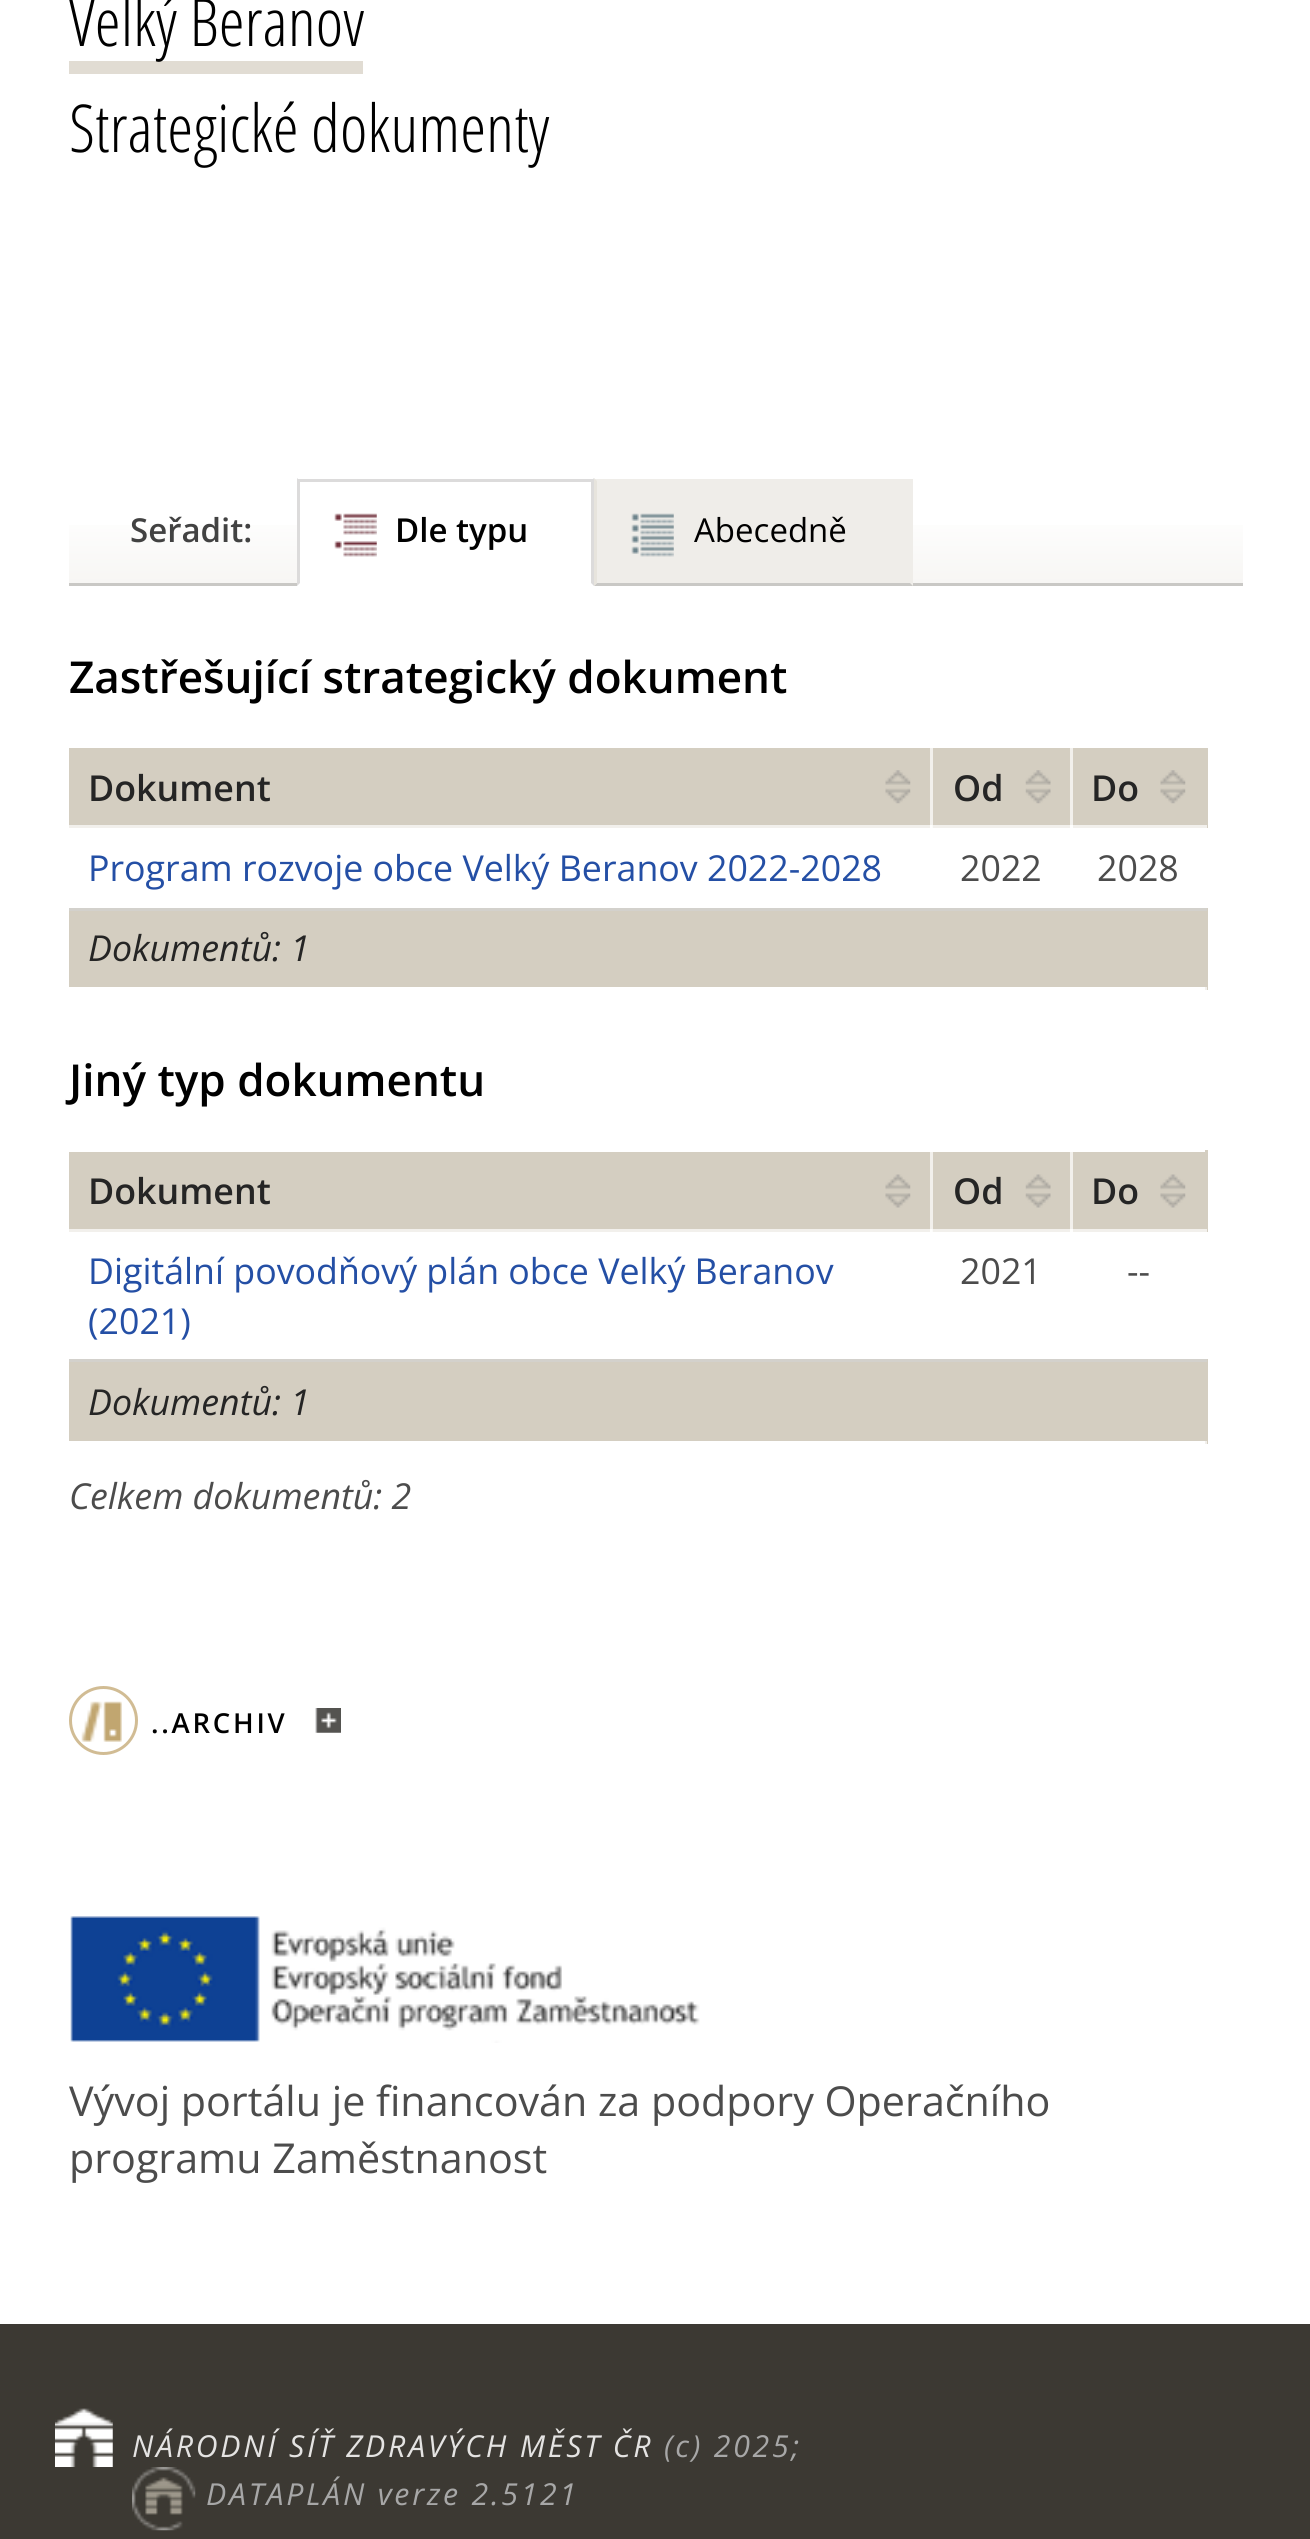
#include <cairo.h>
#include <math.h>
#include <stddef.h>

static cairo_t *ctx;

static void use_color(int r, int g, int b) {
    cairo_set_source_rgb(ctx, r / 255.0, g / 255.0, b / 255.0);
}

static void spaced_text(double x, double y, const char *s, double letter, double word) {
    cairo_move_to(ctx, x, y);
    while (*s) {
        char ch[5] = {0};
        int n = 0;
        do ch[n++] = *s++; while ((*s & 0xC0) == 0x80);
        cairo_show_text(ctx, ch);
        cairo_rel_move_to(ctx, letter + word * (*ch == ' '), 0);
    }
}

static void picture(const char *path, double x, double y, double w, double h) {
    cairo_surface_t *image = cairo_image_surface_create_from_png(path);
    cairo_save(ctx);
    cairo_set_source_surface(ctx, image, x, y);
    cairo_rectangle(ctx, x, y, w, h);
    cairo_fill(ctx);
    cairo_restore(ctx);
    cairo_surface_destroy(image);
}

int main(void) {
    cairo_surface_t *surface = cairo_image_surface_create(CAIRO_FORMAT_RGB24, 1310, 2539);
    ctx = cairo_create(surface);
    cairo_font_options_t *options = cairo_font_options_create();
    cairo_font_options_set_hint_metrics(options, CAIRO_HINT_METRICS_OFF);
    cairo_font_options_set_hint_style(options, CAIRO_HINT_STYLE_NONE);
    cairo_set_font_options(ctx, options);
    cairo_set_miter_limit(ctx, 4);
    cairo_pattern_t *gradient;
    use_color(255, 255, 255);
    cairo_paint(ctx);
    use_color(225, 220, 211);
    cairo_rectangle(ctx, 69, 61, 294, 13);
    cairo_fill(ctx);
    cairo_select_font_face(ctx, "Open Sans Condensed Light", CAIRO_FONT_SLANT_NORMAL, CAIRO_FONT_WEIGHT_NORMAL);
    cairo_set_font_size(ctx, 66);
    use_color(0, 0, 0);
    cairo_move_to(ctx, 69, 46);
    cairo_show_text(ctx, "Velký Beranov");
    cairo_move_to(ctx, 69, 152);
    cairo_show_text(ctx, "Strategické dokumenty");
    gradient = cairo_pattern_create_linear(656, 476, 656, 583);
    cairo_pattern_add_color_stop_rgba(gradient, 0, 1, 1, 1, 1);
    cairo_pattern_add_color_stop_rgba(gradient, 0.3, 1, 1, 1, 1);
    cairo_pattern_add_color_stop_rgba(gradient, 1, 0.969, 0.965, 0.957, 1);
    cairo_set_source(ctx, gradient);
    cairo_pattern_destroy(gradient);
    cairo_rectangle(ctx, 69, 525, 1174, 58);
    cairo_fill(ctx);
    use_color(201, 200, 197);
    cairo_rectangle(ctx, 69, 583, 1174, 3);
    cairo_fill(ctx);
    cairo_select_font_face(ctx, "Open Sans SemiBold", CAIRO_FONT_SLANT_NORMAL, CAIRO_FONT_WEIGHT_NORMAL);
    cairo_set_font_size(ctx, 33);
    use_color(66, 66, 66);
    cairo_move_to(ctx, 130, 542);
    cairo_show_text(ctx, "Seřadit:");
    use_color(255, 255, 255);
    cairo_rectangle(ctx, 297, 525, 297, 61);
    cairo_fill(ctx);
    use_color(220, 219, 219);
    cairo_rectangle(ctx, 297, 479, 297, 3);
    cairo_fill(ctx);
    cairo_new_path(ctx);
    cairo_move_to(ctx, 594, 478);
    cairo_line_to(ctx, 594, 586);
    cairo_line_to(ctx, 591, 583);
    cairo_line_to(ctx, 591, 481);
    cairo_close_path(ctx);
    cairo_fill(ctx);
    cairo_new_path(ctx);
    cairo_move_to(ctx, 297, 586);
    cairo_line_to(ctx, 297, 478);
    cairo_line_to(ctx, 300, 481);
    cairo_line_to(ctx, 300, 583);
    cairo_close_path(ctx);
    cairo_fill(ctx);
    picture("img1.png", 334, 513, 43, 44);
    use_color(0, 0, 0);
    cairo_move_to(ctx, 395, 542);
    cairo_show_text(ctx, "Dle typu");
    use_color(239, 237, 233);
    cairo_rectangle(ctx, 594, 479, 319, 107);
    cairo_fill(ctx);
    use_color(201, 200, 197);
    cairo_new_path(ctx);
    cairo_move_to(ctx, 913, 586);
    cairo_line_to(ctx, 594, 586);
    cairo_line_to(ctx, 597, 583);
    cairo_line_to(ctx, 910, 583);
    cairo_close_path(ctx);
    cairo_fill(ctx);
    use_color(231, 228, 221);
    cairo_new_path(ctx);
    cairo_move_to(ctx, 594, 586);
    cairo_line_to(ctx, 594, 478);
    cairo_line_to(ctx, 597, 481);
    cairo_line_to(ctx, 597, 583);
    cairo_close_path(ctx);
    cairo_fill(ctx);
    picture("img2.png", 631, 513, 43, 44);
    cairo_select_font_face(ctx, "Open Sans", CAIRO_FONT_SLANT_NORMAL, CAIRO_FONT_WEIGHT_NORMAL);
    use_color(0, 0, 0);
    cairo_move_to(ctx, 694, 542);
    cairo_show_text(ctx, "Abecedně");
    cairo_select_font_face(ctx, "Open Sans SemiBold", CAIRO_FONT_SLANT_NORMAL, CAIRO_FONT_WEIGHT_NORMAL);
    cairo_set_font_size(ctx, 44);
    cairo_move_to(ctx, 69, 693);
    cairo_show_text(ctx, "Zastřešující strategický dokument");
    use_color(212, 206, 193);
    cairo_rectangle(ctx, 69, 748, 861, 77);
    cairo_fill(ctx);
    use_color(242, 240, 236);
    cairo_rectangle(ctx, 69, 825, 863, 3);
    cairo_fill(ctx);
    cairo_rectangle(ctx, 930, 748, 3, 80);
    cairo_fill(ctx);
    use_color(254, 254, 253);
    cairo_rectangle(ctx, 930, 825, 2, 3);
    cairo_fill(ctx);
    picture("img3.png", 885, 770, 26, 34);
    cairo_set_font_size(ctx, 35.75);
    use_color(37, 37, 37);
    cairo_move_to(ctx, 88, 801);
    cairo_show_text(ctx, "Dokument");
    use_color(212, 206, 193);
    cairo_rectangle(ctx, 933, 748, 137, 77);
    cairo_fill(ctx);
    use_color(242, 240, 236);
    cairo_rectangle(ctx, 932, 825, 138, 3);
    cairo_fill(ctx);
    use_color(251, 251, 249);
    cairo_rectangle(ctx, 932, 825, 1, 3);
    cairo_fill(ctx);
    picture("img4.png", 1025, 770, 26, 34);
    use_color(37, 37, 37);
    cairo_move_to(ctx, 953, 801);
    cairo_show_text(ctx, "Od");
    use_color(212, 206, 193);
    cairo_rectangle(ctx, 1073, 748, 132, 77);
    cairo_fill(ctx);
    use_color(242, 240, 236);
    cairo_rectangle(ctx, 1070, 748, 3, 80);
    cairo_fill(ctx);
    use_color(212, 206, 193);
    cairo_rectangle(ctx, 1205, 748, 3, 80);
    cairo_fill(ctx);
    use_color(242, 240, 236);
    cairo_rectangle(ctx, 1070, 825, 137, 3);
    cairo_fill(ctx);
    use_color(254, 254, 253);
    cairo_rectangle(ctx, 1070, 825, 3, 3);
    cairo_fill(ctx);
    picture("img3.png", 1160, 770, 26, 34);
    use_color(37, 37, 37);
    cairo_move_to(ctx, 1091, 801);
    cairo_show_text(ctx, "Do");
    cairo_select_font_face(ctx, "Open Sans", CAIRO_FONT_SLANT_NORMAL, CAIRO_FONT_WEIGHT_NORMAL);
    use_color(36, 79, 165);
    cairo_move_to(ctx, 88, 881);
    cairo_show_text(ctx, "Program rozvoje obce Velký Beranov 2022-2028");
    use_color(76, 76, 76);
    cairo_move_to(ctx, 960, 881);
    cairo_show_text(ctx, "2022");
    use_color(212, 206, 193);
    cairo_rectangle(ctx, 1205, 908, 3, 82);
    cairo_fill(ctx);
    use_color(211, 209, 204);
    cairo_rectangle(ctx, 69, 908, 1138, 3);
    cairo_fill(ctx);
    use_color(76, 76, 76);
    cairo_move_to(ctx, 1097, 881);
    cairo_show_text(ctx, "2028");
    use_color(212, 206, 193);
    cairo_rectangle(ctx, 69, 911, 1136, 76);
    cairo_fill(ctx);
    use_color(242, 240, 236);
    cairo_rectangle(ctx, 1205, 987, 2, 3);
    cairo_fill(ctx);
    cairo_select_font_face(ctx, "Open Sans", CAIRO_FONT_SLANT_ITALIC, CAIRO_FONT_WEIGHT_NORMAL);
    use_color(37, 37, 37);
    cairo_move_to(ctx, 88, 961);
    cairo_show_text(ctx, "Dokumentů: 1");
    cairo_select_font_face(ctx, "Open Sans SemiBold", CAIRO_FONT_SLANT_NORMAL, CAIRO_FONT_WEIGHT_NORMAL);
    cairo_set_font_size(ctx, 44);
    use_color(0, 0, 0);
    cairo_move_to(ctx, 69, 1096);
    cairo_show_text(ctx, "Jiný typ dokumentu");
    use_color(212, 206, 193);
    cairo_rectangle(ctx, 69, 1152, 861, 77);
    cairo_fill(ctx);
    use_color(242, 240, 236);
    cairo_rectangle(ctx, 69, 1229, 863, 3);
    cairo_fill(ctx);
    cairo_rectangle(ctx, 930, 1152, 3, 80);
    cairo_fill(ctx);
    use_color(254, 254, 253);
    cairo_rectangle(ctx, 930, 1229, 2, 3);
    cairo_fill(ctx);
    picture("img5.png", 885, 1174, 26, 34);
    cairo_set_font_size(ctx, 35.75);
    use_color(37, 37, 37);
    cairo_move_to(ctx, 88, 1204);
    cairo_show_text(ctx, "Dokument");
    use_color(212, 206, 193);
    cairo_rectangle(ctx, 933, 1152, 137, 77);
    cairo_fill(ctx);
    use_color(242, 240, 236);
    cairo_rectangle(ctx, 932, 1229, 138, 3);
    cairo_fill(ctx);
    use_color(251, 251, 249);
    cairo_rectangle(ctx, 932, 1229, 1, 3);
    cairo_fill(ctx);
    picture("img6.png", 1025, 1174, 26, 34);
    use_color(37, 37, 37);
    cairo_move_to(ctx, 953, 1204);
    cairo_show_text(ctx, "Od");
    use_color(212, 206, 193);
    cairo_rectangle(ctx, 1073, 1152, 132, 77);
    cairo_fill(ctx);
    use_color(242, 240, 236);
    cairo_rectangle(ctx, 1070, 1152, 3, 80);
    cairo_fill(ctx);
    use_color(212, 206, 193);
    cairo_rectangle(ctx, 1205, 1150, 3, 82);
    cairo_fill(ctx);
    use_color(242, 240, 236);
    cairo_rectangle(ctx, 1070, 1229, 137, 3);
    cairo_fill(ctx);
    use_color(254, 254, 253);
    cairo_rectangle(ctx, 1070, 1229, 3, 3);
    cairo_fill(ctx);
    picture("img5.png", 1160, 1174, 26, 34);
    use_color(37, 37, 37);
    cairo_move_to(ctx, 1091, 1204);
    cairo_show_text(ctx, "Do");
    cairo_select_font_face(ctx, "Open Sans", CAIRO_FONT_SLANT_NORMAL, CAIRO_FONT_WEIGHT_NORMAL);
    use_color(36, 79, 165);
    cairo_move_to(ctx, 88, 1284);
    cairo_show_text(ctx, "Digitální povodňový plán obce Velký Beranov");
    cairo_move_to(ctx, 88, 1334);
    cairo_show_text(ctx, "(2021)");
    use_color(76, 76, 76);
    cairo_move_to(ctx, 960, 1284);
    cairo_show_text(ctx, "2021");
    use_color(212, 206, 193);
    cairo_rectangle(ctx, 1205, 1359, 3, 85);
    cairo_fill(ctx);
    use_color(211, 209, 204);
    cairo_rectangle(ctx, 69, 1359, 1138, 3);
    cairo_fill(ctx);
    use_color(76, 76, 76);
    cairo_move_to(ctx, 1127, 1284);
    cairo_show_text(ctx, "--");
    use_color(212, 206, 193);
    cairo_rectangle(ctx, 69, 1362, 1136, 79);
    cairo_fill(ctx);
    use_color(242, 240, 236);
    cairo_rectangle(ctx, 1205, 1441, 2, 3);
    cairo_fill(ctx);
    cairo_select_font_face(ctx, "Open Sans", CAIRO_FONT_SLANT_ITALIC, CAIRO_FONT_WEIGHT_NORMAL);
    use_color(37, 37, 37);
    cairo_move_to(ctx, 88, 1415);
    cairo_show_text(ctx, "Dokumentů: 1");
    use_color(76, 76, 76);
    cairo_move_to(ctx, 69, 1509);
    cairo_show_text(ctx, "Celkem dokumentů: 2");
    picture("img7.png", 81, 1701, 41, 41);
    cairo_arc(ctx, 103.5, 1720.5, 33, 0, 2 * M_PI);
    use_color(209, 188, 148);
    cairo_set_line_width(ctx, 3);
    cairo_stroke(ctx);
    cairo_select_font_face(ctx, "Open Sans SemiBold", CAIRO_FONT_SLANT_NORMAL, CAIRO_FONT_WEIGHT_NORMAL);
    cairo_set_font_size(ctx, 27.5);
    use_color(0, 0, 0);
    spaced_text(151, 1733, "..ARCHIV", 2.75, 0);
    picture("img8.png", 315, 1708, 26, 25);
    picture("img9.png", 70, 1916, 630, 127);
    cairo_select_font_face(ctx, "Open Sans", CAIRO_FONT_SLANT_NORMAL, CAIRO_FONT_WEIGHT_NORMAL);
    cairo_set_font_size(ctx, 41.25);
    use_color(76, 76, 76);
    cairo_move_to(ctx, 69, 2116);
    cairo_show_text(ctx, "Vývoj portálu je financován za podpory Operačního");
    cairo_move_to(ctx, 69, 2173);
    cairo_show_text(ctx, "programu Zaměstnanost");
    use_color(60, 57, 51);
    cairo_rectangle(ctx, 0, 2324, 1310, 215);
    cairo_fill(ctx);
    picture("img10.png", 55, 2408, 58, 59);
    cairo_select_font_face(ctx, "Open Sans", CAIRO_FONT_SLANT_ITALIC, CAIRO_FONT_WEIGHT_NORMAL);
    cairo_set_font_size(ctx, 30.25);
    use_color(228, 227, 226);
    spaced_text(132, 2457, "NÁRODNÍ SÍŤ ZDRAVÝCH MĚST ČR", 2.75, 0);
    use_color(167, 167, 167);
    spaced_text(664, 2457, "(c) 2025;", 2.75, 0);
    picture("img11.png", 132, 2467, 64, 64);
    spaced_text(206, 2505, "DATAPLÁN verze 2.5121", 2.75, 0);
    cairo_surface_write_to_png(surface, "result.png");
    cairo_font_options_destroy(options);
    cairo_destroy(ctx);
    cairo_surface_destroy(surface);
    return 0;
}
